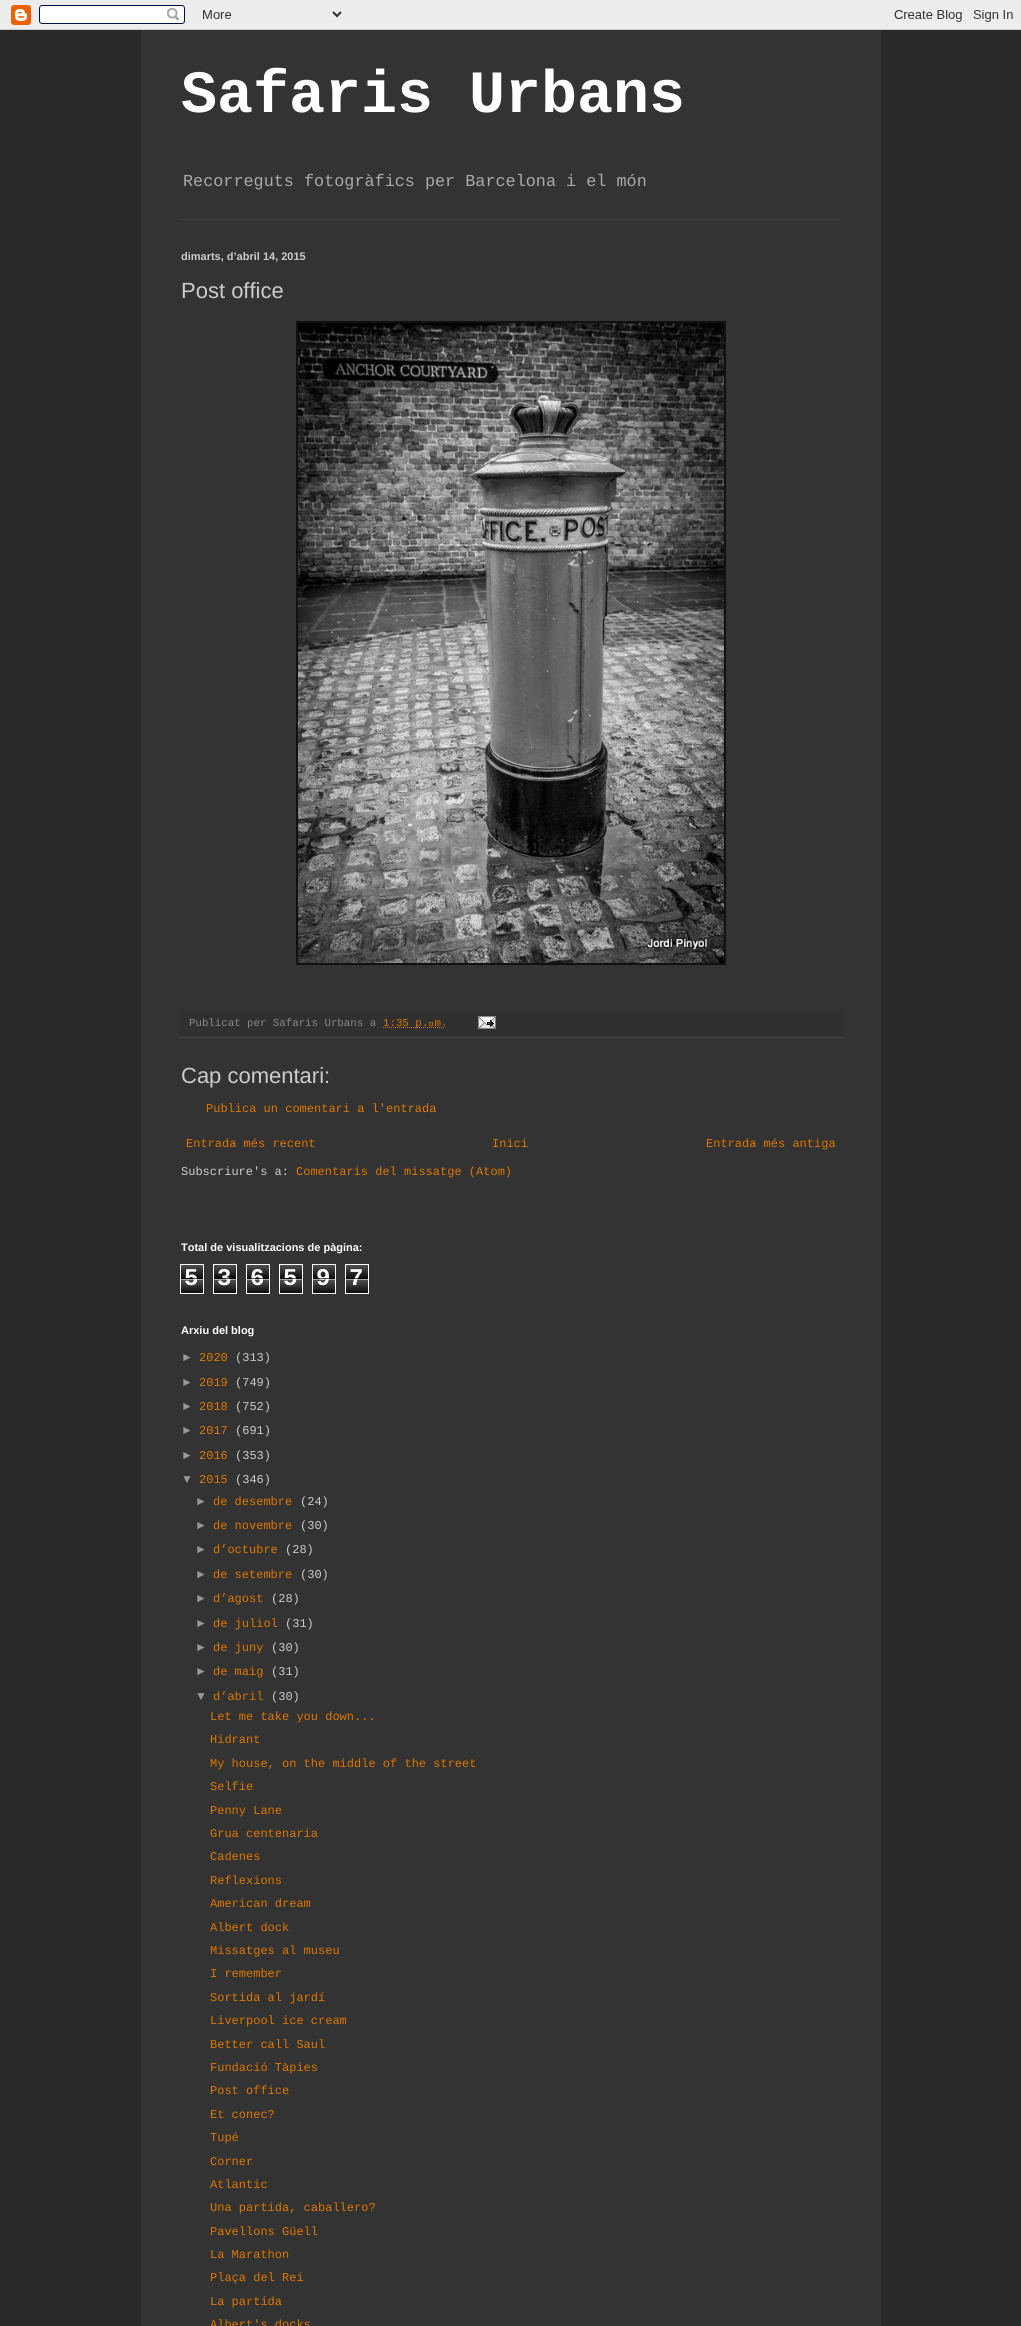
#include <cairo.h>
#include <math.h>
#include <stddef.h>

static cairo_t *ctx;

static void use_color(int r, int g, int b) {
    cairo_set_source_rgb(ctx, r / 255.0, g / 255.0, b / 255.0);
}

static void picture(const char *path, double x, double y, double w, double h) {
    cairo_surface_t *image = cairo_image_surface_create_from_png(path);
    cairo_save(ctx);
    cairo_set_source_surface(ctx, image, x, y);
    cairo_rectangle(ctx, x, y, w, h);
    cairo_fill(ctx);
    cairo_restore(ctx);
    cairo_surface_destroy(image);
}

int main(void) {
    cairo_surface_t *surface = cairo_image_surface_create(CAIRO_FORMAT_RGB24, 1021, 2326);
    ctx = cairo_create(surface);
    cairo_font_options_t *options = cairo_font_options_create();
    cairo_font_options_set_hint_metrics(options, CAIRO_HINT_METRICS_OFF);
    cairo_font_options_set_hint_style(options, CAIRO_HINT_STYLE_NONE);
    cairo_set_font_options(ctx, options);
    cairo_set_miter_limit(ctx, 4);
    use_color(41, 41, 41);
    cairo_paint(ctx);
    picture("img1.png", 0, 0, 1021, 30);
    use_color(51, 51, 51);
    cairo_rectangle(ctx, 141, 30, 740, 2296);
    cairo_fill(ctx);
    cairo_select_font_face(ctx, "Liberation Mono", CAIRO_FONT_SLANT_NORMAL, CAIRO_FONT_WEIGHT_BOLD);
    cairo_set_font_size(ctx, 60);
    use_color(255, 255, 255);
    cairo_move_to(ctx, 181, 112);
    cairo_show_text(ctx, "Safaris Urbans");
    cairo_select_font_face(ctx, "Liberation Mono", CAIRO_FONT_SLANT_NORMAL, CAIRO_FONT_WEIGHT_NORMAL);
    cairo_set_font_size(ctx, 16.8);
    use_color(170, 170, 170);
    cairo_move_to(ctx, 183, 186);
    cairo_show_text(ctx, "Recorreguts fotogràfics per Barcelona i el món");
    use_color(64, 64, 64);
    cairo_rectangle(ctx, 181, 219, 660, 1);
    cairo_fill(ctx);
    cairo_select_font_face(ctx, "Liberation Sans", CAIRO_FONT_SLANT_NORMAL, CAIRO_FONT_WEIGHT_BOLD);
    cairo_set_font_size(ctx, 11);
    use_color(204, 204, 204);
    cairo_move_to(ctx, 181, 260);
    cairo_show_text(ctx, "dimarts, d’abril 14, 2015");
    cairo_select_font_face(ctx, "Liberation Sans", CAIRO_FONT_SLANT_NORMAL, CAIRO_FONT_WEIGHT_NORMAL);
    cairo_set_font_size(ctx, 22);
    cairo_move_to(ctx, 181, 298);
    cairo_show_text(ctx, "Post office");
    use_color(17, 17, 17);
    cairo_rectangle(ctx, 296, 321, 430, 644);
    cairo_fill(ctx);
    picture("img2.png", 298, 323, 426, 640);
    use_color(48, 48, 48);
    cairo_rectangle(ctx, 179, 1010, 664, 27);
    cairo_fill(ctx);
    use_color(68, 68, 68);
    cairo_rectangle(ctx, 179, 1037, 664, 1);
    cairo_fill(ctx);
    cairo_select_font_face(ctx, "Liberation Mono", CAIRO_FONT_SLANT_NORMAL, CAIRO_FONT_WEIGHT_NORMAL);
    cairo_set_font_size(ctx, 10.75);
    use_color(136, 136, 136);
    cairo_move_to(ctx, 189, 1026);
    cairo_show_text(ctx, "Publicat per Safaris Urbans a");
    cairo_new_path(ctx);
    cairo_move_to(ctx, 383, 1027.5);
    cairo_line_to(ctx, 444.5, 1027.5);
    use_color(221, 119, 0);
    cairo_set_line_width(ctx, 1);
    cairo_set_dash(ctx, (double[]){1, 1}, 2, 0);
    cairo_stroke(ctx);
    cairo_move_to(ctx, 383, 1026);
    cairo_show_text(ctx, "1:35 p. m.");
    picture("img3.png", 478, 1016, 18, 13);
    cairo_select_font_face(ctx, "Liberation Sans", CAIRO_FONT_SLANT_NORMAL, CAIRO_FONT_WEIGHT_NORMAL);
    cairo_set_font_size(ctx, 22);
    use_color(204, 204, 204);
    cairo_move_to(ctx, 181, 1083);
    cairo_show_text(ctx, "Cap comentari:");
    cairo_select_font_face(ctx, "Liberation Mono", CAIRO_FONT_SLANT_NORMAL, CAIRO_FONT_WEIGHT_NORMAL);
    cairo_set_font_size(ctx, 12);
    use_color(221, 119, 0);
    cairo_move_to(ctx, 206, 1112);
    cairo_show_text(ctx, "Publica un comentari a l'entrada");
    cairo_move_to(ctx, 186, 1147);
    cairo_show_text(ctx, "Entrada més recent");
    cairo_move_to(ctx, 492, 1147);
    cairo_show_text(ctx, "Inici");
    cairo_move_to(ctx, 706, 1147);
    cairo_show_text(ctx, "Entrada més antiga");
    use_color(204, 204, 204);
    cairo_move_to(ctx, 181, 1175);
    cairo_show_text(ctx, "Subscriure's a:");
    use_color(221, 119, 0);
    cairo_move_to(ctx, 296, 1175);
    cairo_show_text(ctx, "Comentaris del missatge (Atom)");
    cairo_select_font_face(ctx, "Liberation Sans", CAIRO_FONT_SLANT_NORMAL, CAIRO_FONT_WEIGHT_BOLD);
    cairo_set_font_size(ctx, 11);
    use_color(255, 255, 255);
    cairo_move_to(ctx, 181, 1251);
    cairo_show_text(ctx, "Total de visualitzacions de pàgina:");
    picture("img4.png", 181, 1265, 22, 28);
    cairo_rectangle(ctx, 180.5, 1264.5, 23, 29);
    cairo_set_dash(ctx, NULL, 0, 0);
    cairo_stroke(ctx);
    cairo_select_font_face(ctx, "Liberation Mono", CAIRO_FONT_SLANT_NORMAL, CAIRO_FONT_WEIGHT_BOLD);
    cairo_set_font_size(ctx, 24);
    cairo_move_to(ctx, 184, 1285);
    cairo_show_text(ctx, "5");
    cairo_set_source_rgba(ctx, 0, 0, 0, 0.65);
    cairo_rectangle(ctx, 181, 1278, 22, 1);
    cairo_fill(ctx);
    cairo_set_source_rgba(ctx, 1, 1, 1, 0.65);
    cairo_rectangle(ctx, 181, 1279, 22, 1);
    cairo_fill(ctx);
    picture("img4.png", 214, 1265, 22, 28);
    cairo_rectangle(ctx, 213.5, 1264.5, 23, 29);
    use_color(255, 255, 255);
    cairo_stroke(ctx);
    cairo_move_to(ctx, 217, 1285);
    cairo_show_text(ctx, "3");
    cairo_set_source_rgba(ctx, 0, 0, 0, 0.65);
    cairo_rectangle(ctx, 214, 1278, 22, 1);
    cairo_fill(ctx);
    cairo_set_source_rgba(ctx, 1, 1, 1, 0.65);
    cairo_rectangle(ctx, 214, 1279, 22, 1);
    cairo_fill(ctx);
    picture("img4.png", 247, 1265, 22, 28);
    cairo_rectangle(ctx, 246.5, 1264.5, 23, 29);
    use_color(255, 255, 255);
    cairo_stroke(ctx);
    cairo_move_to(ctx, 250, 1285);
    cairo_show_text(ctx, "6");
    cairo_set_source_rgba(ctx, 0, 0, 0, 0.65);
    cairo_rectangle(ctx, 247, 1278, 22, 1);
    cairo_fill(ctx);
    cairo_set_source_rgba(ctx, 1, 1, 1, 0.65);
    cairo_rectangle(ctx, 247, 1279, 22, 1);
    cairo_fill(ctx);
    picture("img4.png", 280, 1265, 22, 28);
    cairo_rectangle(ctx, 279.5, 1264.5, 23, 29);
    use_color(255, 255, 255);
    cairo_stroke(ctx);
    cairo_move_to(ctx, 283, 1285);
    cairo_show_text(ctx, "5");
    cairo_set_source_rgba(ctx, 0, 0, 0, 0.65);
    cairo_rectangle(ctx, 280, 1278, 22, 1);
    cairo_fill(ctx);
    cairo_set_source_rgba(ctx, 1, 1, 1, 0.65);
    cairo_rectangle(ctx, 280, 1279, 22, 1);
    cairo_fill(ctx);
    picture("img4.png", 313, 1265, 22, 28);
    cairo_rectangle(ctx, 312.5, 1264.5, 23, 29);
    use_color(255, 255, 255);
    cairo_stroke(ctx);
    cairo_move_to(ctx, 316, 1285);
    cairo_show_text(ctx, "9");
    cairo_set_source_rgba(ctx, 0, 0, 0, 0.65);
    cairo_rectangle(ctx, 313, 1278, 22, 1);
    cairo_fill(ctx);
    cairo_set_source_rgba(ctx, 1, 1, 1, 0.65);
    cairo_rectangle(ctx, 313, 1279, 22, 1);
    cairo_fill(ctx);
    picture("img4.png", 346, 1265, 22, 28);
    cairo_rectangle(ctx, 345.5, 1264.5, 23, 29);
    use_color(255, 255, 255);
    cairo_stroke(ctx);
    cairo_move_to(ctx, 349, 1285);
    cairo_show_text(ctx, "7");
    cairo_set_source_rgba(ctx, 0, 0, 0, 0.65);
    cairo_rectangle(ctx, 346, 1278, 22, 1);
    cairo_fill(ctx);
    cairo_set_source_rgba(ctx, 1, 1, 1, 0.65);
    cairo_rectangle(ctx, 346, 1279, 22, 1);
    cairo_fill(ctx);
    cairo_select_font_face(ctx, "Liberation Sans", CAIRO_FONT_SLANT_NORMAL, CAIRO_FONT_WEIGHT_BOLD);
    cairo_set_font_size(ctx, 11);
    use_color(255, 255, 255);
    cairo_move_to(ctx, 181, 1334);
    cairo_show_text(ctx, "Arxiu del blog");
    cairo_select_font_face(ctx, "Liberation Sans", CAIRO_FONT_SLANT_NORMAL, CAIRO_FONT_WEIGHT_NORMAL);
    cairo_set_font_size(ctx, 12);
    use_color(153, 153, 153);
    cairo_move_to(ctx, 181, 1361);
    cairo_show_text(ctx, "►");
    cairo_select_font_face(ctx, "Liberation Mono", CAIRO_FONT_SLANT_NORMAL, CAIRO_FONT_WEIGHT_NORMAL);
    use_color(221, 119, 0);
    cairo_move_to(ctx, 199, 1361);
    cairo_show_text(ctx, "2020");
    use_color(204, 204, 204);
    cairo_move_to(ctx, 235, 1361);
    cairo_show_text(ctx, "(313)");
    cairo_select_font_face(ctx, "Liberation Sans", CAIRO_FONT_SLANT_NORMAL, CAIRO_FONT_WEIGHT_NORMAL);
    use_color(153, 153, 153);
    cairo_move_to(ctx, 181, 1386);
    cairo_show_text(ctx, "►");
    cairo_select_font_face(ctx, "Liberation Mono", CAIRO_FONT_SLANT_NORMAL, CAIRO_FONT_WEIGHT_NORMAL);
    use_color(221, 119, 0);
    cairo_move_to(ctx, 199, 1386);
    cairo_show_text(ctx, "2019");
    use_color(204, 204, 204);
    cairo_move_to(ctx, 235, 1386);
    cairo_show_text(ctx, "(749)");
    cairo_select_font_face(ctx, "Liberation Sans", CAIRO_FONT_SLANT_NORMAL, CAIRO_FONT_WEIGHT_NORMAL);
    use_color(153, 153, 153);
    cairo_move_to(ctx, 181, 1410);
    cairo_show_text(ctx, "►");
    cairo_select_font_face(ctx, "Liberation Mono", CAIRO_FONT_SLANT_NORMAL, CAIRO_FONT_WEIGHT_NORMAL);
    use_color(221, 119, 0);
    cairo_move_to(ctx, 199, 1410);
    cairo_show_text(ctx, "2018");
    use_color(204, 204, 204);
    cairo_move_to(ctx, 235, 1410);
    cairo_show_text(ctx, "(752)");
    cairo_select_font_face(ctx, "Liberation Sans", CAIRO_FONT_SLANT_NORMAL, CAIRO_FONT_WEIGHT_NORMAL);
    use_color(153, 153, 153);
    cairo_move_to(ctx, 181, 1434);
    cairo_show_text(ctx, "►");
    cairo_select_font_face(ctx, "Liberation Mono", CAIRO_FONT_SLANT_NORMAL, CAIRO_FONT_WEIGHT_NORMAL);
    use_color(221, 119, 0);
    cairo_move_to(ctx, 199, 1434);
    cairo_show_text(ctx, "2017");
    use_color(204, 204, 204);
    cairo_move_to(ctx, 235, 1434);
    cairo_show_text(ctx, "(691)");
    cairo_select_font_face(ctx, "Liberation Sans", CAIRO_FONT_SLANT_NORMAL, CAIRO_FONT_WEIGHT_NORMAL);
    use_color(153, 153, 153);
    cairo_move_to(ctx, 181, 1459);
    cairo_show_text(ctx, "►");
    cairo_select_font_face(ctx, "Liberation Mono", CAIRO_FONT_SLANT_NORMAL, CAIRO_FONT_WEIGHT_NORMAL);
    use_color(221, 119, 0);
    cairo_move_to(ctx, 199, 1459);
    cairo_show_text(ctx, "2016");
    use_color(204, 204, 204);
    cairo_move_to(ctx, 235, 1459);
    cairo_show_text(ctx, "(353)");
    cairo_select_font_face(ctx, "Liberation Sans", CAIRO_FONT_SLANT_NORMAL, CAIRO_FONT_WEIGHT_NORMAL);
    use_color(153, 153, 153);
    cairo_move_to(ctx, 181, 1483);
    cairo_show_text(ctx, "▼");
    cairo_select_font_face(ctx, "Liberation Mono", CAIRO_FONT_SLANT_NORMAL, CAIRO_FONT_WEIGHT_NORMAL);
    use_color(221, 119, 0);
    cairo_move_to(ctx, 199, 1483);
    cairo_show_text(ctx, "2015");
    use_color(204, 204, 204);
    cairo_move_to(ctx, 235, 1483);
    cairo_show_text(ctx, "(346)");
    cairo_select_font_face(ctx, "Liberation Sans", CAIRO_FONT_SLANT_NORMAL, CAIRO_FONT_WEIGHT_NORMAL);
    use_color(153, 153, 153);
    cairo_move_to(ctx, 195, 1505);
    cairo_show_text(ctx, "►");
    cairo_select_font_face(ctx, "Liberation Mono", CAIRO_FONT_SLANT_NORMAL, CAIRO_FONT_WEIGHT_NORMAL);
    use_color(221, 119, 0);
    cairo_move_to(ctx, 213, 1505);
    cairo_show_text(ctx, "de desembre");
    use_color(204, 204, 204);
    cairo_move_to(ctx, 300, 1505);
    cairo_show_text(ctx, "(24)");
    cairo_select_font_face(ctx, "Liberation Sans", CAIRO_FONT_SLANT_NORMAL, CAIRO_FONT_WEIGHT_NORMAL);
    use_color(153, 153, 153);
    cairo_move_to(ctx, 195, 1529);
    cairo_show_text(ctx, "►");
    cairo_select_font_face(ctx, "Liberation Mono", CAIRO_FONT_SLANT_NORMAL, CAIRO_FONT_WEIGHT_NORMAL);
    use_color(221, 119, 0);
    cairo_move_to(ctx, 213, 1529);
    cairo_show_text(ctx, "de novembre");
    use_color(204, 204, 204);
    cairo_move_to(ctx, 300, 1529);
    cairo_show_text(ctx, "(30)");
    cairo_select_font_face(ctx, "Liberation Sans", CAIRO_FONT_SLANT_NORMAL, CAIRO_FONT_WEIGHT_NORMAL);
    use_color(153, 153, 153);
    cairo_move_to(ctx, 195, 1553);
    cairo_show_text(ctx, "►");
    cairo_select_font_face(ctx, "Liberation Mono", CAIRO_FONT_SLANT_NORMAL, CAIRO_FONT_WEIGHT_NORMAL);
    use_color(221, 119, 0);
    cairo_move_to(ctx, 213, 1553);
    cairo_show_text(ctx, "d’octubre");
    use_color(204, 204, 204);
    cairo_move_to(ctx, 285, 1553);
    cairo_show_text(ctx, "(28)");
    cairo_select_font_face(ctx, "Liberation Sans", CAIRO_FONT_SLANT_NORMAL, CAIRO_FONT_WEIGHT_NORMAL);
    use_color(153, 153, 153);
    cairo_move_to(ctx, 195, 1578);
    cairo_show_text(ctx, "►");
    cairo_select_font_face(ctx, "Liberation Mono", CAIRO_FONT_SLANT_NORMAL, CAIRO_FONT_WEIGHT_NORMAL);
    use_color(221, 119, 0);
    cairo_move_to(ctx, 213, 1578);
    cairo_show_text(ctx, "de setembre");
    use_color(204, 204, 204);
    cairo_move_to(ctx, 300, 1578);
    cairo_show_text(ctx, "(30)");
    cairo_select_font_face(ctx, "Liberation Sans", CAIRO_FONT_SLANT_NORMAL, CAIRO_FONT_WEIGHT_NORMAL);
    use_color(153, 153, 153);
    cairo_move_to(ctx, 195, 1602);
    cairo_show_text(ctx, "►");
    cairo_select_font_face(ctx, "Liberation Mono", CAIRO_FONT_SLANT_NORMAL, CAIRO_FONT_WEIGHT_NORMAL);
    use_color(221, 119, 0);
    cairo_move_to(ctx, 213, 1602);
    cairo_show_text(ctx, "d’agost");
    use_color(204, 204, 204);
    cairo_move_to(ctx, 271, 1602);
    cairo_show_text(ctx, "(28)");
    cairo_select_font_face(ctx, "Liberation Sans", CAIRO_FONT_SLANT_NORMAL, CAIRO_FONT_WEIGHT_NORMAL);
    use_color(153, 153, 153);
    cairo_move_to(ctx, 195, 1627);
    cairo_show_text(ctx, "►");
    cairo_select_font_face(ctx, "Liberation Mono", CAIRO_FONT_SLANT_NORMAL, CAIRO_FONT_WEIGHT_NORMAL);
    use_color(221, 119, 0);
    cairo_move_to(ctx, 213, 1627);
    cairo_show_text(ctx, "de juliol");
    use_color(204, 204, 204);
    cairo_move_to(ctx, 285, 1627);
    cairo_show_text(ctx, "(31)");
    cairo_select_font_face(ctx, "Liberation Sans", CAIRO_FONT_SLANT_NORMAL, CAIRO_FONT_WEIGHT_NORMAL);
    use_color(153, 153, 153);
    cairo_move_to(ctx, 195, 1651);
    cairo_show_text(ctx, "►");
    cairo_select_font_face(ctx, "Liberation Mono", CAIRO_FONT_SLANT_NORMAL, CAIRO_FONT_WEIGHT_NORMAL);
    use_color(221, 119, 0);
    cairo_move_to(ctx, 213, 1651);
    cairo_show_text(ctx, "de juny");
    use_color(204, 204, 204);
    cairo_move_to(ctx, 271, 1651);
    cairo_show_text(ctx, "(30)");
    cairo_select_font_face(ctx, "Liberation Sans", CAIRO_FONT_SLANT_NORMAL, CAIRO_FONT_WEIGHT_NORMAL);
    use_color(153, 153, 153);
    cairo_move_to(ctx, 195, 1675);
    cairo_show_text(ctx, "►");
    cairo_select_font_face(ctx, "Liberation Mono", CAIRO_FONT_SLANT_NORMAL, CAIRO_FONT_WEIGHT_NORMAL);
    use_color(221, 119, 0);
    cairo_move_to(ctx, 213, 1675);
    cairo_show_text(ctx, "de maig");
    use_color(204, 204, 204);
    cairo_move_to(ctx, 271, 1675);
    cairo_show_text(ctx, "(31)");
    cairo_select_font_face(ctx, "Liberation Sans", CAIRO_FONT_SLANT_NORMAL, CAIRO_FONT_WEIGHT_NORMAL);
    use_color(153, 153, 153);
    cairo_move_to(ctx, 195, 1700);
    cairo_show_text(ctx, "▼");
    cairo_select_font_face(ctx, "Liberation Mono", CAIRO_FONT_SLANT_NORMAL, CAIRO_FONT_WEIGHT_NORMAL);
    use_color(221, 119, 0);
    cairo_move_to(ctx, 213, 1700);
    cairo_show_text(ctx, "d’abril");
    use_color(204, 204, 204);
    cairo_move_to(ctx, 271, 1700);
    cairo_show_text(ctx, "(30)");
    use_color(221, 119, 0);
    cairo_move_to(ctx, 210, 1720);
    cairo_show_text(ctx, "Let me take you down...");
    cairo_move_to(ctx, 210, 1743);
    cairo_show_text(ctx, "Hidrant");
    cairo_move_to(ctx, 210, 1767);
    cairo_show_text(ctx, "My house, on the middle of the street");
    cairo_move_to(ctx, 210, 1790);
    cairo_show_text(ctx, "Selfie");
    cairo_move_to(ctx, 210, 1814);
    cairo_show_text(ctx, "Penny Lane");
    cairo_move_to(ctx, 210, 1837);
    cairo_show_text(ctx, "Grua centenaria");
    cairo_move_to(ctx, 210, 1860);
    cairo_show_text(ctx, "Cadenes");
    cairo_move_to(ctx, 210, 1884);
    cairo_show_text(ctx, "Reflexions");
    cairo_move_to(ctx, 210, 1907);
    cairo_show_text(ctx, "American dream");
    cairo_move_to(ctx, 210, 1931);
    cairo_show_text(ctx, "Albert dock");
    cairo_move_to(ctx, 210, 1954);
    cairo_show_text(ctx, "Missatges al museu");
    cairo_move_to(ctx, 210, 1977);
    cairo_show_text(ctx, "I remember");
    cairo_move_to(ctx, 210, 2001);
    cairo_show_text(ctx, "Sortida al jardí");
    cairo_move_to(ctx, 210, 2024);
    cairo_show_text(ctx, "Liverpool ice cream");
    cairo_move_to(ctx, 210, 2048);
    cairo_show_text(ctx, "Better call Saul");
    cairo_move_to(ctx, 210, 2071);
    cairo_show_text(ctx, "Fundació Tàpies");
    cairo_move_to(ctx, 210, 2094);
    cairo_show_text(ctx, "Post office");
    cairo_move_to(ctx, 210, 2118);
    cairo_show_text(ctx, "Et conec?");
    cairo_move_to(ctx, 210, 2141);
    cairo_show_text(ctx, "Tupé");
    cairo_move_to(ctx, 210, 2165);
    cairo_show_text(ctx, "Corner");
    cairo_move_to(ctx, 210, 2188);
    cairo_show_text(ctx, "Atlantic");
    cairo_move_to(ctx, 210, 2211);
    cairo_show_text(ctx, "Una partida, caballero?");
    cairo_move_to(ctx, 210, 2235);
    cairo_show_text(ctx, "Pavellons Güell");
    cairo_move_to(ctx, 210, 2258);
    cairo_show_text(ctx, "La Marathon");
    cairo_move_to(ctx, 210, 2281);
    cairo_show_text(ctx, "Plaça del Rei");
    cairo_move_to(ctx, 210, 2305);
    cairo_show_text(ctx, "La partida");
    cairo_move_to(ctx, 210, 2328);
    cairo_show_text(ctx, "Albert's docks");
    cairo_surface_write_to_png(surface, "result.png");
    cairo_font_options_destroy(options);
    cairo_destroy(ctx);
    cairo_surface_destroy(surface);
    return 0;
}
